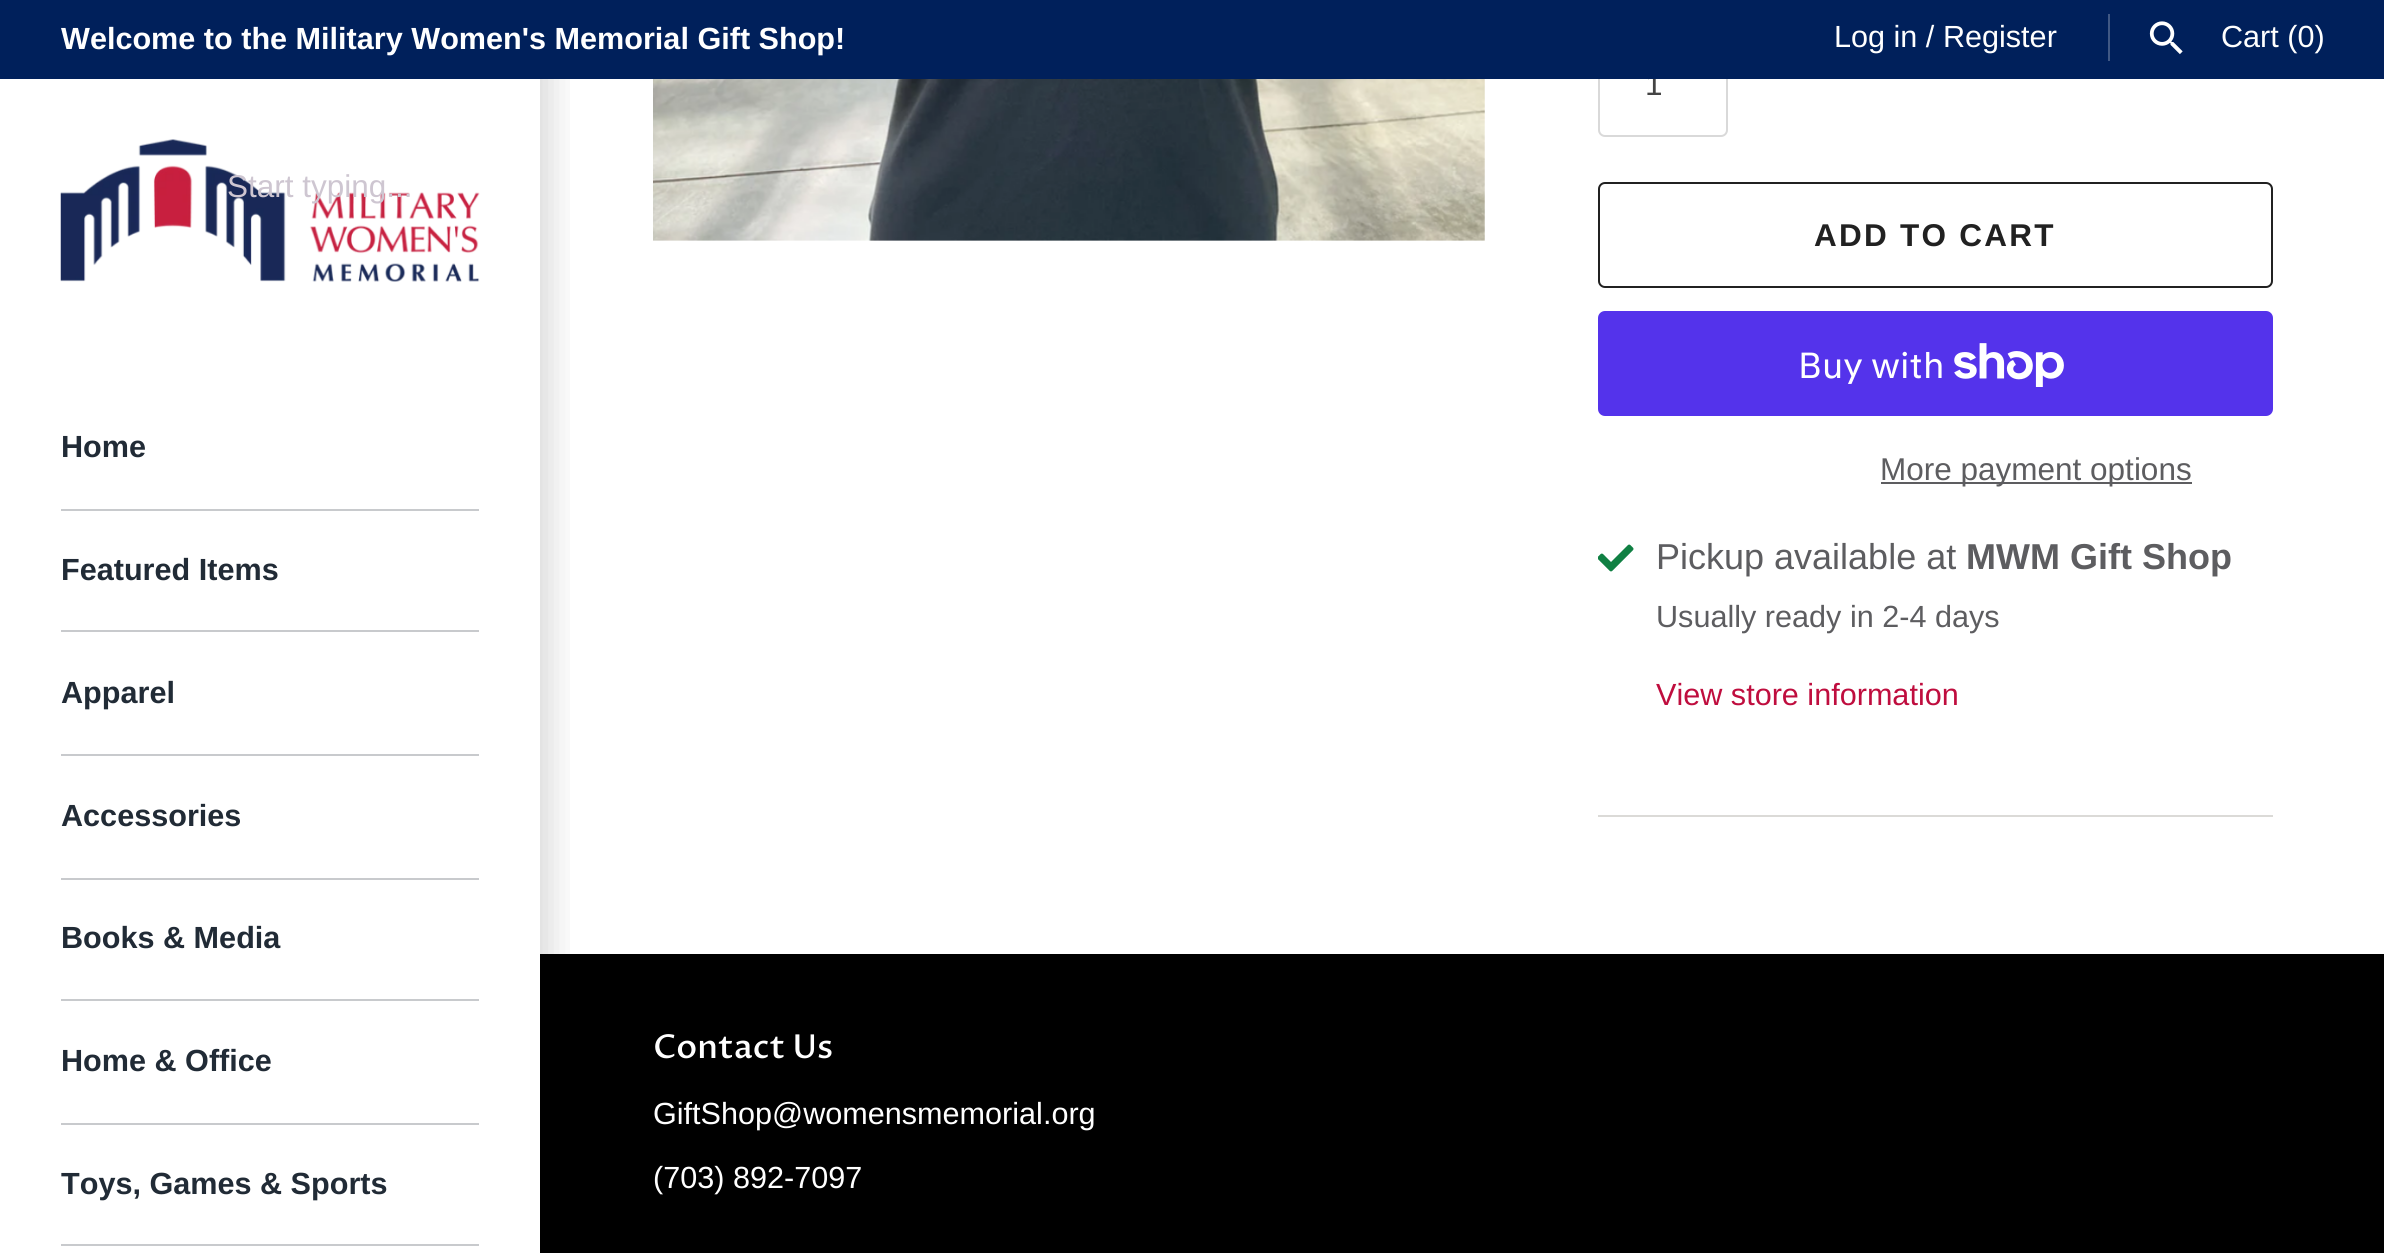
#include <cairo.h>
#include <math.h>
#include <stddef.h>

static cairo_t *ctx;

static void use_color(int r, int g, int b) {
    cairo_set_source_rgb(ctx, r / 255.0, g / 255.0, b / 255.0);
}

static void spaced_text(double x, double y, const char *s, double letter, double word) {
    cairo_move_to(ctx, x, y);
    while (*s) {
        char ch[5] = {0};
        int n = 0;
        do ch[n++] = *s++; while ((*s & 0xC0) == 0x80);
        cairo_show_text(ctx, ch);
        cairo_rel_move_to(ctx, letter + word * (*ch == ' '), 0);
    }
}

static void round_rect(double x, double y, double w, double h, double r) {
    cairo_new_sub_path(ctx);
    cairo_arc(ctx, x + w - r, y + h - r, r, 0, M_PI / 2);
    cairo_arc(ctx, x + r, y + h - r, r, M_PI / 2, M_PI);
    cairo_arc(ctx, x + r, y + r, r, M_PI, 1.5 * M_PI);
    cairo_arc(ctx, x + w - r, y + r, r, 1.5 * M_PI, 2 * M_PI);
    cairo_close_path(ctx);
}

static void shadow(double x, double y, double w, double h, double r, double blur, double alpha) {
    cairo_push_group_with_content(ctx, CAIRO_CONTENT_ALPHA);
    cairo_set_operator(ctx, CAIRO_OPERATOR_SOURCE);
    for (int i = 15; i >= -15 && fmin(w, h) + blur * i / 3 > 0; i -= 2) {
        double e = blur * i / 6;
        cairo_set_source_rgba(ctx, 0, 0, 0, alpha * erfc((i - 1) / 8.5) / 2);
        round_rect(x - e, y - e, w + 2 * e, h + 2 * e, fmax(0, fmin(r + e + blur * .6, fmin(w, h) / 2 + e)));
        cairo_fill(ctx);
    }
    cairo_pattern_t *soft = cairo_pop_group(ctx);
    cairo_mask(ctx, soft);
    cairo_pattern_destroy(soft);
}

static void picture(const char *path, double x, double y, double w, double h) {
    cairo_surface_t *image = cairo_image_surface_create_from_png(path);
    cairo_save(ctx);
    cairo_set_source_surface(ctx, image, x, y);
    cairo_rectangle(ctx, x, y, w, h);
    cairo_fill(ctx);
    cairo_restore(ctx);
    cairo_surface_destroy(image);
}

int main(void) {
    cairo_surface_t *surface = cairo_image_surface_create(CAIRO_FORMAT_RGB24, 2384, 1253);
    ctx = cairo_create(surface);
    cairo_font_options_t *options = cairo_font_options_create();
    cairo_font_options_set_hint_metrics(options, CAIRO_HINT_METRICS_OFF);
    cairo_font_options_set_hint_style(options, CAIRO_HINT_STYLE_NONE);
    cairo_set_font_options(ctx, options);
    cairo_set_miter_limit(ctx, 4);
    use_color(255, 255, 255);
    cairo_paint(ctx);
    use_color(0, 0, 0);
    cairo_rectangle(ctx, 540, 954, 1844, 299);
    cairo_fill(ctx);
    cairo_save(ctx);
    cairo_rectangle(ctx, 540, 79, 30, 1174);
    cairo_clip(ctx);
    use_color(0, 0, 0);
    shadow(-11, 68, 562, 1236, 0, 17, 0.15);
    cairo_restore(ctx);
    round_rect(1599, 33, 128, 103, 6);
    use_color(217, 217, 217);
    cairo_stroke(ctx);
    cairo_select_font_face(ctx, "Liberation Sans", CAIRO_FONT_SLANT_NORMAL, CAIRO_FONT_WEIGHT_NORMAL);
    cairo_set_font_size(ctx, 31.5);
    use_color(68, 68, 68);
    cairo_move_to(ctx, 1645, 95);
    cairo_show_text(ctx, "1");
    use_color(0, 32, 91);
    cairo_rectangle(ctx, 0, 0, 2384, 79);
    cairo_fill(ctx);
    cairo_select_font_face(ctx, "Liberation Sans", CAIRO_FONT_SLANT_NORMAL, CAIRO_FONT_WEIGHT_BOLD);
    cairo_set_font_size(ctx, 30.6);
    use_color(255, 255, 255);
    cairo_move_to(ctx, 61, 49);
    cairo_show_text(ctx, "Welcome to the Military Women's Memorial Gift Shop!");
    cairo_select_font_face(ctx, "Liberation Sans", CAIRO_FONT_SLANT_NORMAL, CAIRO_FONT_WEIGHT_NORMAL);
    cairo_move_to(ctx, 1834, 47);
    cairo_show_text(ctx, "Log in / Register");
    use_color(64, 88, 132);
    cairo_rectangle(ctx, 2108, 14, 2, 47);
    cairo_fill(ctx);
    picture("img1.png", 2149, 21, 34, 34);
    use_color(255, 255, 255);
    cairo_move_to(ctx, 2221, 47);
    cairo_show_text(ctx, "Cart (0)");
    picture("img2.png", 60, 139, 420, 143);
    cairo_set_font_size(ctx, 31.5);
    use_color(206, 198, 209);
    cairo_move_to(ctx, 227, 197);
    cairo_show_text(ctx, "Start typing...");
    use_color(200, 202, 205);
    cairo_rectangle(ctx, 61, 509, 418, 2);
    cairo_fill(ctx);
    cairo_select_font_face(ctx, "Liberation Sans", CAIRO_FONT_SLANT_NORMAL, CAIRO_FONT_WEIGHT_BOLD);
    cairo_set_font_size(ctx, 30.6);
    use_color(33, 43, 54);
    cairo_move_to(ctx, 61, 457);
    cairo_show_text(ctx, "Home");
    use_color(200, 202, 205);
    cairo_rectangle(ctx, 61, 630, 418, 2);
    cairo_fill(ctx);
    use_color(33, 43, 54);
    cairo_move_to(ctx, 61, 580);
    cairo_show_text(ctx, "Featured Items");
    use_color(200, 202, 205);
    cairo_rectangle(ctx, 61, 754, 418, 2);
    cairo_fill(ctx);
    use_color(33, 43, 54);
    cairo_move_to(ctx, 61, 703);
    cairo_show_text(ctx, "Apparel");
    use_color(200, 202, 205);
    cairo_rectangle(ctx, 61, 878, 418, 2);
    cairo_fill(ctx);
    use_color(33, 43, 54);
    cairo_move_to(ctx, 61, 826);
    cairo_show_text(ctx, "Accessories");
    use_color(200, 202, 205);
    cairo_rectangle(ctx, 61, 999, 418, 2);
    cairo_fill(ctx);
    use_color(33, 43, 54);
    cairo_move_to(ctx, 61, 948);
    cairo_show_text(ctx, "Books & Media");
    use_color(200, 202, 205);
    cairo_rectangle(ctx, 61, 1123, 418, 2);
    cairo_fill(ctx);
    use_color(33, 43, 54);
    cairo_move_to(ctx, 61, 1071);
    cairo_show_text(ctx, "Home & Office");
    use_color(200, 202, 205);
    cairo_rectangle(ctx, 61, 1244, 418, 2);
    cairo_fill(ctx);
    use_color(33, 43, 54);
    cairo_move_to(ctx, 61, 1194);
    cairo_show_text(ctx, "Toys, Games & Sports");
    picture("img3.png", 653, 79, 832, 162);
    round_rect(1599, 183, 673, 104, 6);
    use_color(33, 33, 33);
    cairo_stroke(ctx);
    cairo_set_font_size(ctx, 31.5);
    spaced_text(1814, 246, "ADD TO CART", 2.25, 0);
    use_color(84, 51, 235);
    round_rect(1598, 311, 675, 105, 7);
    cairo_fill(ctx);
    cairo_select_font_face(ctx, "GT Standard", CAIRO_FONT_SLANT_NORMAL, CAIRO_FONT_WEIGHT_NORMAL);
    cairo_set_font_size(ctx, 36);
    use_color(255, 255, 255);
    cairo_move_to(ctx, 1798, 378);
    cairo_show_text(ctx, "Buy with");
    picture("img4.png", 1954, 343, 110, 44);
    use_color(93, 93, 96);
    cairo_rectangle(ctx, 1881, 482, 311, 2);
    cairo_fill(ctx);
    cairo_select_font_face(ctx, "Liberation Sans", CAIRO_FONT_SLANT_NORMAL, CAIRO_FONT_WEIGHT_NORMAL);
    cairo_set_font_size(ctx, 31.5);
    cairo_move_to(ctx, 1880, 480);
    cairo_show_text(ctx, "More payment options");
    picture("img5.png", 1598, 544, 36, 28);
    cairo_set_font_size(ctx, 36);
    cairo_move_to(ctx, 1656, 569);
    cairo_show_text(ctx, "Pickup available at");
    cairo_select_font_face(ctx, "Liberation Sans", CAIRO_FONT_SLANT_NORMAL, CAIRO_FONT_WEIGHT_BOLD);
    cairo_move_to(ctx, 1966, 569);
    cairo_show_text(ctx, "MWM Gift Shop");
    cairo_select_font_face(ctx, "Liberation Sans", CAIRO_FONT_SLANT_NORMAL, CAIRO_FONT_WEIGHT_NORMAL);
    cairo_set_font_size(ctx, 30.6);
    cairo_move_to(ctx, 1656, 627);
    cairo_show_text(ctx, "Usually ready in 2-4 days");
    use_color(191, 13, 62);
    cairo_move_to(ctx, 1656, 705);
    cairo_show_text(ctx, "View store information");
    use_color(219, 218, 215);
    cairo_rectangle(ctx, 1598, 815, 675, 2);
    cairo_fill(ctx);
    cairo_select_font_face(ctx, "Proza Libre Medium", CAIRO_FONT_SLANT_NORMAL, CAIRO_FONT_WEIGHT_NORMAL);
    cairo_set_font_size(ctx, 33);
    use_color(255, 255, 255);
    cairo_move_to(ctx, 653, 1058);
    cairo_show_text(ctx, "Contact Us");
    cairo_select_font_face(ctx, "Liberation Sans", CAIRO_FONT_SLANT_NORMAL, CAIRO_FONT_WEIGHT_NORMAL);
    cairo_set_font_size(ctx, 30.6);
    cairo_move_to(ctx, 653, 1124);
    cairo_show_text(ctx, "GiftShop@womensmemorial.org");
    cairo_move_to(ctx, 653, 1188);
    cairo_show_text(ctx, "(703) 892-7097");
    cairo_surface_write_to_png(surface, "result.png");
    cairo_font_options_destroy(options);
    cairo_destroy(ctx);
    cairo_surface_destroy(surface);
    return 0;
}
